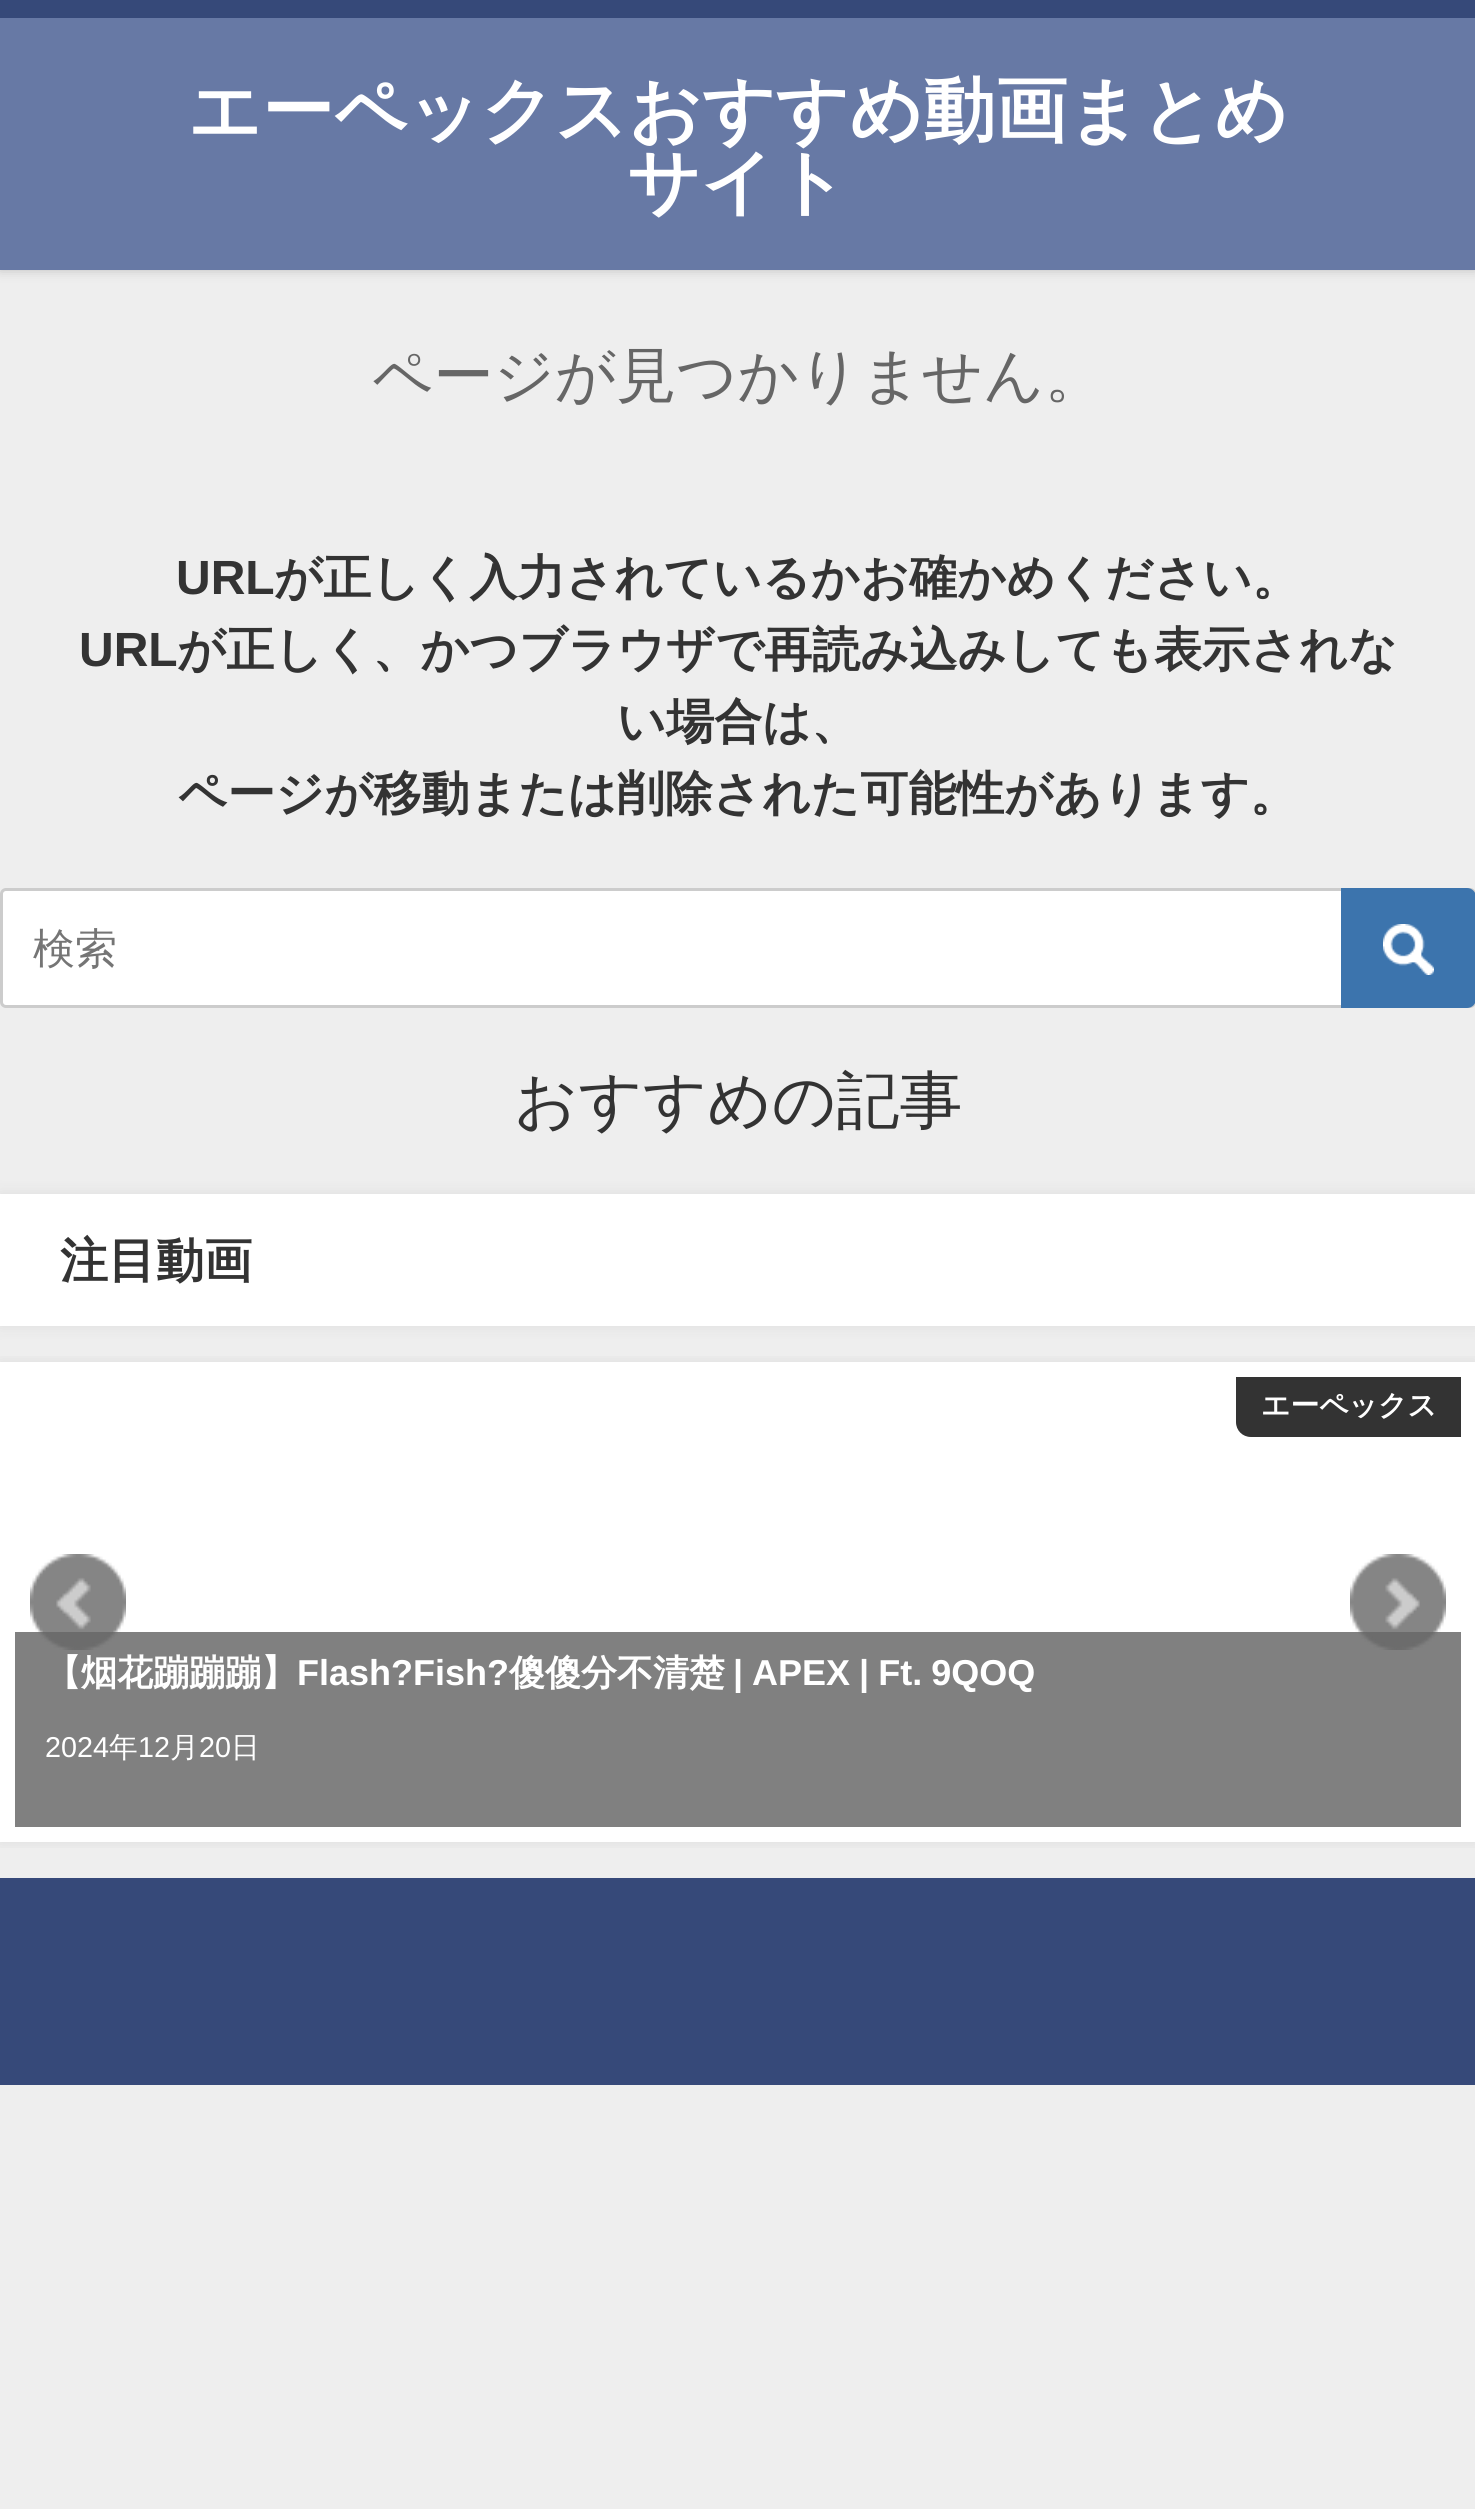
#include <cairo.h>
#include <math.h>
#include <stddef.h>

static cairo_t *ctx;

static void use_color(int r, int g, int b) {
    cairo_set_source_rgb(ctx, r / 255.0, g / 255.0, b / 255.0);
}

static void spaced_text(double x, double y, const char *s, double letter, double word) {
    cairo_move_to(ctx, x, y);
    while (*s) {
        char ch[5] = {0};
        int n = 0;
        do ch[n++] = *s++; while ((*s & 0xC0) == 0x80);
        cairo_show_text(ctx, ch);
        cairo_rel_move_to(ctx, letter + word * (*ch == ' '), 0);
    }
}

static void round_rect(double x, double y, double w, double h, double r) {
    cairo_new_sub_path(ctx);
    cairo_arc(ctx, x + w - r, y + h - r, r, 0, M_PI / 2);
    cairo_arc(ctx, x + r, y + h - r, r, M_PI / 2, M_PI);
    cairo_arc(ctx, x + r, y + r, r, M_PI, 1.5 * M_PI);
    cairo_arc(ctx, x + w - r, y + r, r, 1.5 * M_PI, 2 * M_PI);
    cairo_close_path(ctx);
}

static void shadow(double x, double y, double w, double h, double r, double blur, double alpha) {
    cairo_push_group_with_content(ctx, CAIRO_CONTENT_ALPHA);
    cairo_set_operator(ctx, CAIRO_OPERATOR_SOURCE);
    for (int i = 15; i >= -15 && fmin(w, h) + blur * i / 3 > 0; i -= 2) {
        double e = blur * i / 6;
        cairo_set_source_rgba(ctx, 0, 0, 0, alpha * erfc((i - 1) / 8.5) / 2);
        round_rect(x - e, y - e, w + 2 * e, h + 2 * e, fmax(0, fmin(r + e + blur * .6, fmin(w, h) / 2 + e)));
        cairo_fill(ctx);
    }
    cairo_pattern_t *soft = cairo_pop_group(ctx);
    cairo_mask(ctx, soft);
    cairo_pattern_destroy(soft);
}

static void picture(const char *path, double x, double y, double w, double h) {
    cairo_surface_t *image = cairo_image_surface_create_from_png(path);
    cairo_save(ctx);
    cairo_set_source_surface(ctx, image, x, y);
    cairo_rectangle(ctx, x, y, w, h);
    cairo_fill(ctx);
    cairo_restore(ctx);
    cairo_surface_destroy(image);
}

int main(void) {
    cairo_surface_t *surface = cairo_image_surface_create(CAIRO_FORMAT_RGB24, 1475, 2509);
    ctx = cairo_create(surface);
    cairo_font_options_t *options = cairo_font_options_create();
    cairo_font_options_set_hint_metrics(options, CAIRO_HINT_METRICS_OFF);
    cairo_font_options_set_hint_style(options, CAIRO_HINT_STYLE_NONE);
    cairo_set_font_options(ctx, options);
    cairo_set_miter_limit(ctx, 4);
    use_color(238, 238, 238);
    cairo_paint(ctx);
    use_color(0, 0, 0);
    shadow(0, 0, 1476, 270, 0, 6, 0.2);
    use_color(103, 121, 165);
    cairo_rectangle(ctx, 0, 18, 1475, 252);
    cairo_fill(ctx);
    use_color(54, 73, 121);
    cairo_rectangle(ctx, 0, 0, 1475, 18);
    cairo_fill(ctx);
    cairo_select_font_face(ctx, "WenQuanYi Zen Hei", CAIRO_FONT_SLANT_NORMAL, CAIRO_FONT_WEIGHT_BOLD);
    cairo_set_font_size(ctx, 72);
    use_color(255, 255, 255);
    cairo_move_to(ctx, 188, 135);
    cairo_show_text(ctx, "エーペックスおすすめ動画まとめ");
    cairo_move_to(ctx, 627, 207);
    cairo_show_text(ctx, "サイト");
    cairo_select_font_face(ctx, "WenQuanYi Zen Hei Medium", CAIRO_FONT_SLANT_NORMAL, CAIRO_FONT_WEIGHT_NORMAL);
    cairo_set_font_size(ctx, 60);
    use_color(102, 102, 102);
    cairo_move_to(ctx, 372, 396);
    cairo_show_text(ctx, "ページが見つかりません。");
    cairo_select_font_face(ctx, "Liberation Sans", CAIRO_FONT_SLANT_NORMAL, CAIRO_FONT_WEIGHT_BOLD);
    cairo_set_font_size(ctx, 48);
    use_color(51, 51, 51);
    cairo_move_to(ctx, 176, 594);
    cairo_show_text(ctx, "URL");
    cairo_select_font_face(ctx, "WenQuanYi Zen Hei", CAIRO_FONT_SLANT_NORMAL, CAIRO_FONT_WEIGHT_BOLD);
    cairo_move_to(ctx, 274, 594);
    cairo_show_text(ctx, "が正しく入力されているかお確かめください。");
    cairo_select_font_face(ctx, "Liberation Sans", CAIRO_FONT_SLANT_NORMAL, CAIRO_FONT_WEIGHT_BOLD);
    cairo_move_to(ctx, 79, 666);
    cairo_show_text(ctx, "URL");
    cairo_select_font_face(ctx, "WenQuanYi Zen Hei", CAIRO_FONT_SLANT_NORMAL, CAIRO_FONT_WEIGHT_BOLD);
    cairo_move_to(ctx, 177, 666);
    cairo_show_text(ctx, "が正しく、かつブラウザで再読み込みしても表示されな");
    cairo_move_to(ctx, 617, 738);
    cairo_show_text(ctx, "い場合は、");
    cairo_move_to(ctx, 178, 810);
    cairo_show_text(ctx, "ページが移動または削除された可能性があります。");
    use_color(255, 255, 255);
    round_rect(1.5, 889.5, 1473, 117, 4.5);
    cairo_fill_preserve(ctx);
    use_color(204, 204, 204);
    cairo_set_line_width(ctx, 3);
    cairo_stroke(ctx);
    cairo_select_font_face(ctx, "WenQuanYi Zen Hei Medium", CAIRO_FONT_SLANT_NORMAL, CAIRO_FONT_WEIGHT_NORMAL);
    cairo_set_font_size(ctx, 42);
    use_color(117, 117, 117);
    cairo_move_to(ctx, 33, 963);
    cairo_show_text(ctx, "検索");
    use_color(60, 116, 173);
    cairo_new_path(ctx);
    cairo_move_to(ctx, 1341, 888);
    cairo_line_to(ctx, 1467, 888);
    cairo_curve_to(ctx, 1472, 888, 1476, 892, 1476, 897);
    cairo_line_to(ctx, 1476, 999);
    cairo_curve_to(ctx, 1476, 1004, 1472, 1008, 1467, 1008);
    cairo_line_to(ctx, 1341, 1008);
    cairo_close_path(ctx);
    cairo_fill(ctx);
    picture("img1.png", 1383, 924, 51, 51);
    cairo_set_font_size(ctx, 63);
    use_color(51, 51, 51);
    cairo_move_to(ctx, 514, 1122);
    cairo_show_text(ctx, "おすすめの記事");
    use_color(150, 150, 150);
    shadow(0, 1194, 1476, 132, 0, 7.5, 0.2);
    use_color(255, 255, 255);
    cairo_rectangle(ctx, 0, 1194, 1475, 132);
    cairo_fill(ctx);
    cairo_select_font_face(ctx, "WenQuanYi Zen Hei", CAIRO_FONT_SLANT_NORMAL, CAIRO_FONT_WEIGHT_BOLD);
    cairo_set_font_size(ctx, 48);
    use_color(51, 51, 51);
    cairo_move_to(ctx, 60, 1277);
    cairo_show_text(ctx, "注目動画");
    cairo_save(ctx);
    cairo_rectangle(ctx, 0, 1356, 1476, 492);
    cairo_clip(ctx);
    use_color(150, 150, 150);
    shadow(0, 1362, 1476, 480, 0, 7.5, 0.2);
    cairo_restore(ctx);
    use_color(255, 255, 255);
    cairo_rectangle(ctx, 0, 1362, 1475, 480);
    cairo_fill(ctx);
    use_color(51, 51, 51);
    cairo_new_path(ctx);
    cairo_move_to(ctx, 1236, 1377);
    cairo_line_to(ctx, 1461, 1377);
    cairo_line_to(ctx, 1461, 1437);
    cairo_line_to(ctx, 1251, 1437);
    cairo_curve_to(ctx, 1242.5, 1437, 1236, 1430.5, 1236, 1422);
    cairo_close_path(ctx);
    cairo_fill(ctx);
    cairo_set_font_size(ctx, 28.75);
    use_color(255, 255, 255);
    cairo_move_to(ctx, 1261, 1415);
    cairo_show_text(ctx, "エーペックス");
    use_color(128, 128, 128);
    cairo_rectangle(ctx, 15, 1632, 1446, 195);
    cairo_fill(ctx);
    cairo_set_font_size(ctx, 36);
    use_color(255, 255, 255);
    cairo_move_to(ctx, 45, 1685);
    cairo_show_text(ctx, "【烟花蹦蹦蹦】");
    cairo_select_font_face(ctx, "Liberation Sans", CAIRO_FONT_SLANT_NORMAL, CAIRO_FONT_WEIGHT_BOLD);
    cairo_move_to(ctx, 297, 1685);
    cairo_show_text(ctx, "Flash?Fish?");
    cairo_select_font_face(ctx, "WenQuanYi Zen Hei", CAIRO_FONT_SLANT_NORMAL, CAIRO_FONT_WEIGHT_BOLD);
    cairo_move_to(ctx, 509, 1685);
    cairo_show_text(ctx, "傻傻分不清楚");
    cairo_select_font_face(ctx, "Liberation Sans", CAIRO_FONT_SLANT_NORMAL, CAIRO_FONT_WEIGHT_BOLD);
    spaced_text(733, 1685, "| APEX | Ft. 9QOQ", 0, -1);
    cairo_select_font_face(ctx, "Liberation Sans", CAIRO_FONT_SLANT_NORMAL, CAIRO_FONT_WEIGHT_NORMAL);
    cairo_set_font_size(ctx, 28.75);
    cairo_move_to(ctx, 45, 1757);
    cairo_show_text(ctx, "2024");
    cairo_select_font_face(ctx, "WenQuanYi Zen Hei Medium", CAIRO_FONT_SLANT_NORMAL, CAIRO_FONT_WEIGHT_NORMAL);
    cairo_move_to(ctx, 109, 1757);
    cairo_show_text(ctx, "年");
    cairo_select_font_face(ctx, "Liberation Sans", CAIRO_FONT_SLANT_NORMAL, CAIRO_FONT_WEIGHT_NORMAL);
    cairo_move_to(ctx, 138, 1757);
    cairo_show_text(ctx, "12");
    cairo_select_font_face(ctx, "WenQuanYi Zen Hei Medium", CAIRO_FONT_SLANT_NORMAL, CAIRO_FONT_WEIGHT_NORMAL);
    cairo_move_to(ctx, 170, 1757);
    cairo_show_text(ctx, "月");
    cairo_select_font_face(ctx, "Liberation Sans", CAIRO_FONT_SLANT_NORMAL, CAIRO_FONT_WEIGHT_NORMAL);
    cairo_move_to(ctx, 199, 1757);
    cairo_show_text(ctx, "20");
    cairo_select_font_face(ctx, "WenQuanYi Zen Hei Medium", CAIRO_FONT_SLANT_NORMAL, CAIRO_FONT_WEIGHT_NORMAL);
    cairo_move_to(ctx, 231, 1757);
    cairo_show_text(ctx, "日");
    picture("img2.png", 30, 1554, 96, 96);
    picture("img3.png", 1350, 1554, 96, 96);
    use_color(54, 73, 121);
    cairo_rectangle(ctx, 0, 1878, 1475, 207);
    cairo_fill(ctx);
    cairo_surface_write_to_png(surface, "result.png");
    cairo_font_options_destroy(options);
    cairo_destroy(ctx);
    cairo_surface_destroy(surface);
    return 0;
}
